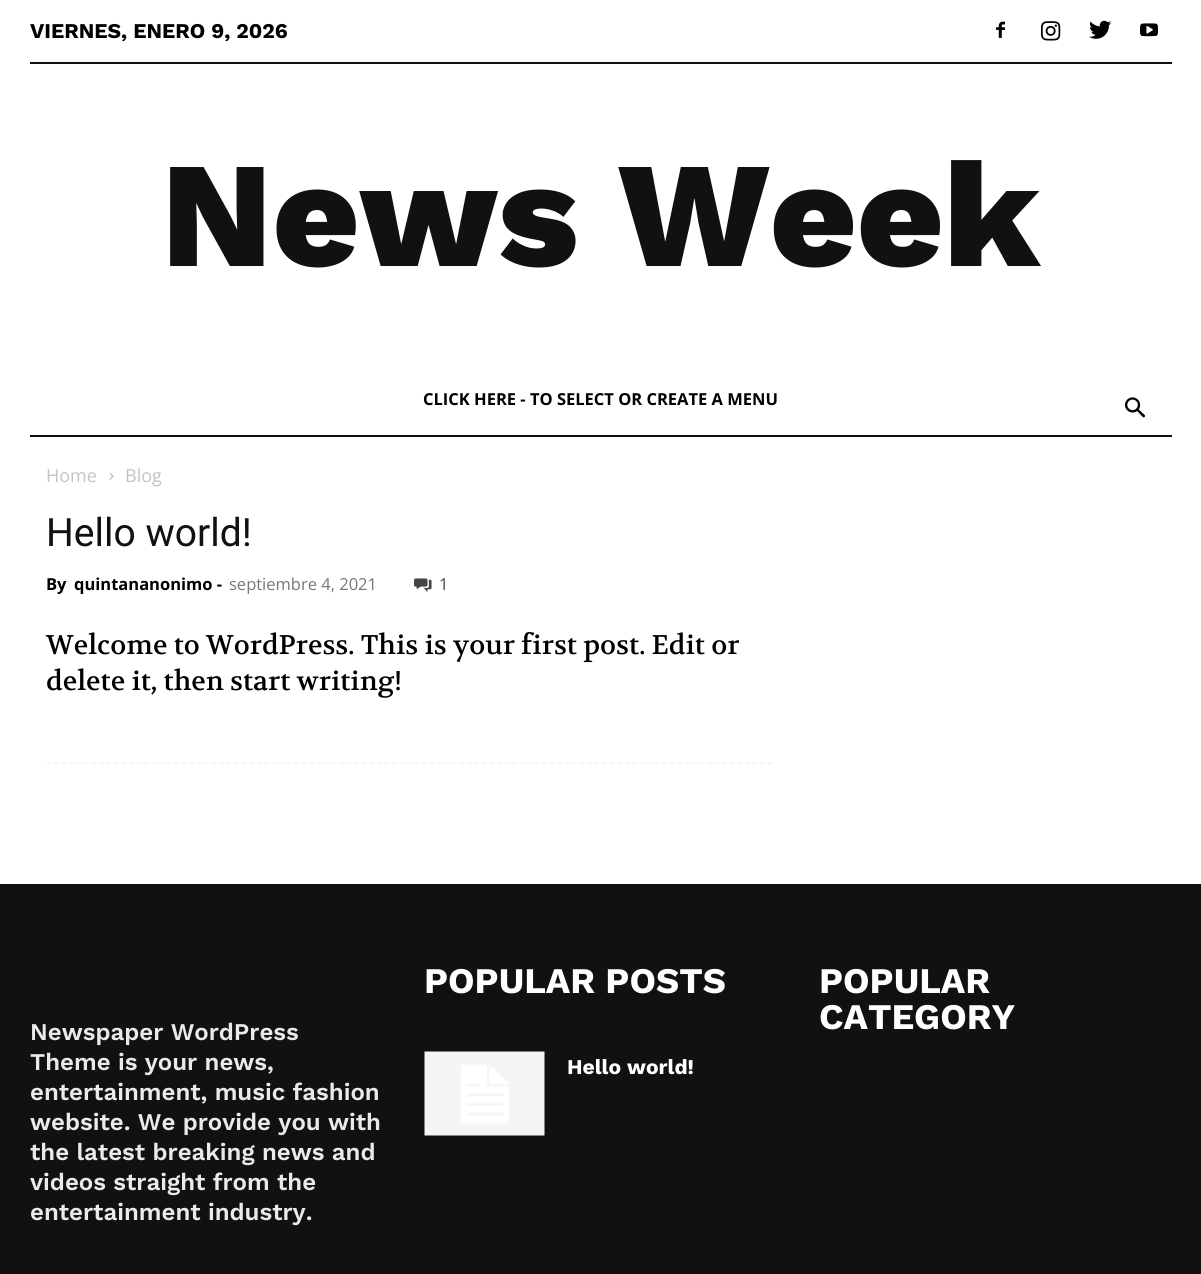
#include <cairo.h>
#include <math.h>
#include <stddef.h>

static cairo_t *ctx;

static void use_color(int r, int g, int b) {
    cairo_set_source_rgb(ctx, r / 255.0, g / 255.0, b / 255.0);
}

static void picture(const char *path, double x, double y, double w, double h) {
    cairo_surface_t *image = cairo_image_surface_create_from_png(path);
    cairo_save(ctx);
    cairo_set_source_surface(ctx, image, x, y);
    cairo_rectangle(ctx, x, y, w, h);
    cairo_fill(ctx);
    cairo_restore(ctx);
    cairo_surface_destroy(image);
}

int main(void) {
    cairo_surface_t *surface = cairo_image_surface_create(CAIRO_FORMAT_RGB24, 1201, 1274);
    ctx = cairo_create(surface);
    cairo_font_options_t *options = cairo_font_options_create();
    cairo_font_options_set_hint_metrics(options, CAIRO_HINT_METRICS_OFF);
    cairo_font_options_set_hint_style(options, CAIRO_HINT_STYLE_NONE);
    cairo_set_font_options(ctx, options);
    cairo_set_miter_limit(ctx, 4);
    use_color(255, 255, 255);
    cairo_paint(ctx);
    use_color(17, 17, 17);
    cairo_rectangle(ctx, 30, 62, 1142, 2);
    cairo_fill(ctx);
    cairo_select_font_face(ctx, "Work Sans", CAIRO_FONT_SLANT_NORMAL, CAIRO_FONT_WEIGHT_BOLD);
    cairo_set_font_size(ctx, 21);
    use_color(0, 0, 0);
    cairo_move_to(ctx, 30, 38);
    cairo_show_text(ctx, "VIERNES, ENERO 9, 2026");
    picture("img1.png", 996, 21, 9, 17);
    picture("img2.png", 1041, 21, 20, 20);
    picture("img3.png", 1089, 20, 22, 19);
    picture("img4.png", 1140, 23, 18, 14);
    cairo_select_font_face(ctx, "Work Sans ExtraBold", CAIRO_FONT_SLANT_NORMAL, CAIRO_FONT_WEIGHT_NORMAL);
    cairo_set_font_size(ctx, 150);
    use_color(17, 17, 17);
    cairo_move_to(ctx, 161, 266);
    cairo_show_text(ctx, "News Week");
    cairo_rectangle(ctx, 30, 435, 1142, 2);
    cairo_fill(ctx);
    cairo_select_font_face(ctx, "Open Sans", CAIRO_FONT_SLANT_NORMAL, CAIRO_FONT_WEIGHT_BOLD);
    cairo_set_font_size(ctx, 16.5);
    use_color(0, 0, 0);
    cairo_move_to(ctx, 423, 405);
    cairo_show_text(ctx, "CLICK HERE - TO SELECT OR CREATE A MENU");
    picture("img5.png", 1125, 397, 20, 21);
    cairo_select_font_face(ctx, "Open Sans", CAIRO_FONT_SLANT_NORMAL, CAIRO_FONT_WEIGHT_NORMAL);
    cairo_set_font_size(ctx, 18);
    use_color(195, 195, 195);
    cairo_move_to(ctx, 46, 482);
    cairo_show_text(ctx, "Home");
    picture("img6.png", 109, 473, 5, 7);
    cairo_move_to(ctx, 125, 482);
    cairo_show_text(ctx, "Blog");
    cairo_new_path(ctx);
    cairo_move_to(ctx, 46.5, 763);
    cairo_line_to(ctx, 772.5, 763);
    use_color(242, 242, 242);
    cairo_set_line_width(ctx, 1.5);
    cairo_set_dash(ctx, (double[]){4.5, 3.01}, 2, 0);
    cairo_stroke(ctx);
    cairo_select_font_face(ctx, "Roboto", CAIRO_FONT_SLANT_NORMAL, CAIRO_FONT_WEIGHT_NORMAL);
    cairo_set_font_size(ctx, 39);
    use_color(17, 17, 17);
    cairo_move_to(ctx, 46, 546);
    cairo_show_text(ctx, "Hello world!");
    cairo_select_font_face(ctx, "Open Sans", CAIRO_FONT_SLANT_NORMAL, CAIRO_FONT_WEIGHT_BOLD);
    cairo_set_font_size(ctx, 16.5);
    use_color(0, 0, 0);
    cairo_move_to(ctx, 46, 590);
    cairo_show_text(ctx, "By");
    cairo_move_to(ctx, 74, 590);
    cairo_show_text(ctx, "quintananonimo -");
    cairo_select_font_face(ctx, "Open Sans", CAIRO_FONT_SLANT_NORMAL, CAIRO_FONT_WEIGHT_NORMAL);
    use_color(118, 118, 118);
    cairo_move_to(ctx, 229, 590);
    cairo_show_text(ctx, "septiembre 4, 2021");
    picture("img7.png", 414, 578, 18, 14);
    use_color(68, 68, 68);
    cairo_move_to(ctx, 439, 590);
    cairo_show_text(ctx, "1");
    cairo_select_font_face(ctx, "Volkhov", CAIRO_FONT_SLANT_NORMAL, CAIRO_FONT_WEIGHT_NORMAL);
    cairo_set_font_size(ctx, 27);
    use_color(0, 0, 0);
    cairo_move_to(ctx, 46, 654);
    cairo_show_text(ctx, "Welcome to WordPress. This is your first post. Edit or");
    cairo_move_to(ctx, 46, 690);
    cairo_show_text(ctx, "delete it, then start writing!");
    use_color(17, 17, 17);
    cairo_rectangle(ctx, 0, 884, 1201, 390);
    cairo_fill(ctx);
    cairo_select_font_face(ctx, "Work Sans", CAIRO_FONT_SLANT_NORMAL, CAIRO_FONT_WEIGHT_BOLD);
    cairo_set_font_size(ctx, 36);
    use_color(255, 255, 255);
    cairo_move_to(ctx, 424, 993);
    cairo_show_text(ctx, "POPULAR POSTS");
    picture("img8.png", 424, 1051, 121, 85);
    cairo_set_font_size(ctx, 21);
    cairo_move_to(ctx, 567, 1074);
    cairo_show_text(ctx, "Hello world!");
    cairo_set_font_size(ctx, 36);
    cairo_move_to(ctx, 819, 993);
    cairo_show_text(ctx, "POPULAR");
    cairo_move_to(ctx, 819, 1029);
    cairo_show_text(ctx, "CATEGORY");
    cairo_select_font_face(ctx, "Work Sans SemiBold", CAIRO_FONT_SLANT_NORMAL, CAIRO_FONT_WEIGHT_NORMAL);
    cairo_set_font_size(ctx, 24);
    use_color(234, 234, 234);
    cairo_move_to(ctx, 30, 1040);
    cairo_show_text(ctx, "Newspaper WordPress");
    cairo_move_to(ctx, 30, 1070);
    cairo_show_text(ctx, "Theme is your news,");
    cairo_move_to(ctx, 30, 1100);
    cairo_show_text(ctx, "entertainment, music fashion");
    cairo_move_to(ctx, 30, 1130);
    cairo_show_text(ctx, "website. We provide you with");
    cairo_move_to(ctx, 30, 1160);
    cairo_show_text(ctx, "the latest breaking news and");
    cairo_move_to(ctx, 30, 1190);
    cairo_show_text(ctx, "videos straight from the");
    cairo_move_to(ctx, 30, 1220);
    cairo_show_text(ctx, "entertainment industry.");
    cairo_surface_write_to_png(surface, "result.png");
    cairo_font_options_destroy(options);
    cairo_destroy(ctx);
    cairo_surface_destroy(surface);
    return 0;
}
